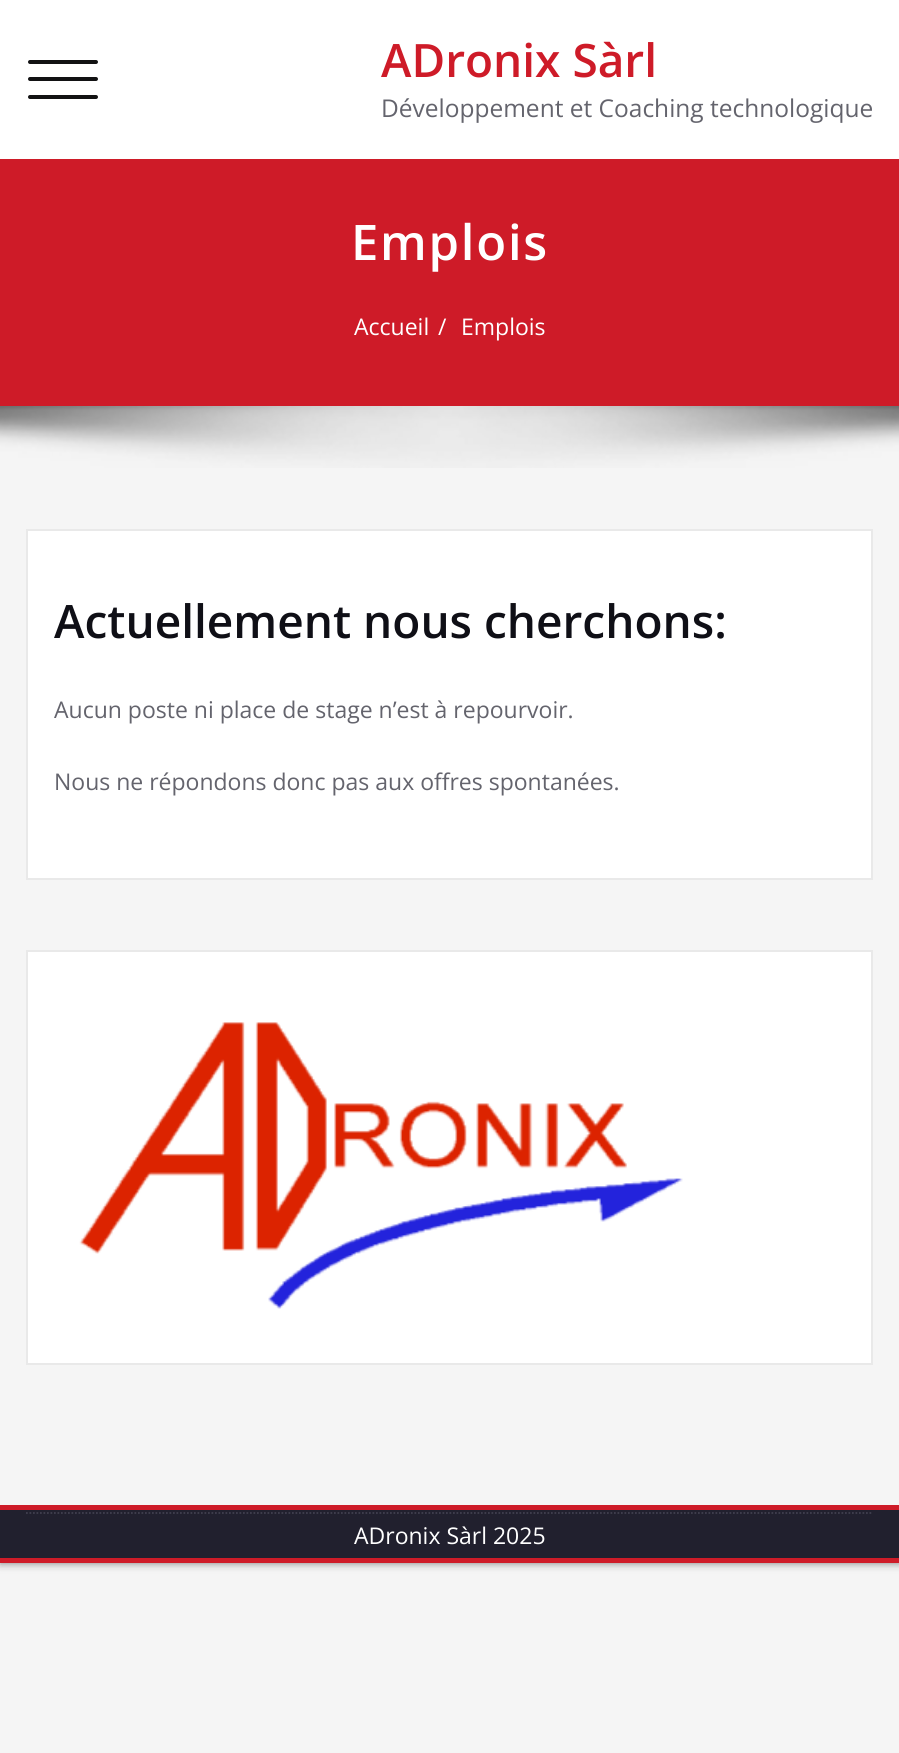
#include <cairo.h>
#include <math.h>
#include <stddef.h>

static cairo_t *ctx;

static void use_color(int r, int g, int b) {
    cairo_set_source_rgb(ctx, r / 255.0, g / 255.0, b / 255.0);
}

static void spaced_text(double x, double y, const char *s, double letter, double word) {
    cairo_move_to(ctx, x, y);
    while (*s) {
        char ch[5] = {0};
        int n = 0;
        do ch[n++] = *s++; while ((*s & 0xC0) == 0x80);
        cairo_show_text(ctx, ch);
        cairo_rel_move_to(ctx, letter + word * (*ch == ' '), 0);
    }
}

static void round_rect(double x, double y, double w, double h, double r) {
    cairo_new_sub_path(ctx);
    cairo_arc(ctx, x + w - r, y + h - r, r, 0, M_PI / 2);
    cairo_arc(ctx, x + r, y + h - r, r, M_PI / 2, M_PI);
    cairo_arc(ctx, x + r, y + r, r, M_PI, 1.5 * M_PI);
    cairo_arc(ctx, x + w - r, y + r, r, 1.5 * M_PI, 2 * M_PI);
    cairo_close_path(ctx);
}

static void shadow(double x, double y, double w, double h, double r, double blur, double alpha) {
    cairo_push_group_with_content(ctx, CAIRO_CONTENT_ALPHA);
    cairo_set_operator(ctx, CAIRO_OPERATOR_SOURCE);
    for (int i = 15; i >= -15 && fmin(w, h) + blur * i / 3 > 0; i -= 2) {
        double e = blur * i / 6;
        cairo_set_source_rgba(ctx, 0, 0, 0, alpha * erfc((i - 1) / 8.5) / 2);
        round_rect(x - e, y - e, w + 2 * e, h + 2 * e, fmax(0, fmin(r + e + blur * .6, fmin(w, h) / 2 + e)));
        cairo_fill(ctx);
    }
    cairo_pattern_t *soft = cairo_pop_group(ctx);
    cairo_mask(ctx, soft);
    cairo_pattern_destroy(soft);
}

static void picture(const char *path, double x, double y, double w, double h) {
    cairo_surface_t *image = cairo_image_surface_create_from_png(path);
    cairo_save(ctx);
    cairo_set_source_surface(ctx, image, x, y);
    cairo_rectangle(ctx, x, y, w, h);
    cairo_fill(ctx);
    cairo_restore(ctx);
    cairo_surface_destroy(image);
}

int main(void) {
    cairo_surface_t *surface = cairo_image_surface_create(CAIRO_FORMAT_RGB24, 899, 1753);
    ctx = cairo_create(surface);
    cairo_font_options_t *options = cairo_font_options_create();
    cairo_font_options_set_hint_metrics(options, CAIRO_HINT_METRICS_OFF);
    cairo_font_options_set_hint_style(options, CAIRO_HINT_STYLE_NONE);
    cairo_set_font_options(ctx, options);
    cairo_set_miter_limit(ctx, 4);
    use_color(245, 245, 245);
    cairo_paint(ctx);
    use_color(0, 0, 0);
    shadow(0, 0, 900, 1563, 0, 4.5, 0.5);
    use_color(245, 245, 245);
    cairo_rectangle(ctx, 0, 406, 899, 1099);
    cairo_fill(ctx);
    use_color(255, 255, 255);
    cairo_rectangle(ctx, 0, 0, 899, 159);
    cairo_fill(ctx);
    use_color(18, 18, 19);
    round_rect(28, 60, 70, 4, 2);
    cairo_fill(ctx);
    round_rect(28, 77, 70, 4, 2);
    cairo_fill(ctx);
    round_rect(28, 95, 70, 4, 2);
    cairo_fill(ctx);
    cairo_select_font_face(ctx, "Open Sans SemiBold", CAIRO_FONT_SLANT_NORMAL, CAIRO_FONT_WEIGHT_NORMAL);
    cairo_set_font_size(ctx, 46);
    use_color(206, 27, 40);
    cairo_move_to(ctx, 381, 77);
    cairo_show_text(ctx, "ADronix Sàrl");
    cairo_select_font_face(ctx, "Open Sans", CAIRO_FONT_SLANT_NORMAL, CAIRO_FONT_WEIGHT_NORMAL);
    cairo_set_font_size(ctx, 24.5);
    use_color(100, 100, 109);
    cairo_move_to(ctx, 381, 117);
    cairo_show_text(ctx, "Développement et Coaching technologique");
    use_color(206, 27, 40);
    cairo_rectangle(ctx, 0, 159, 899, 247);
    cairo_fill(ctx);
    cairo_select_font_face(ctx, "Open Sans SemiBold", CAIRO_FONT_SLANT_NORMAL, CAIRO_FONT_WEIGHT_NORMAL);
    cairo_set_font_size(ctx, 49);
    use_color(255, 255, 255);
    spaced_text(351, 260, "Emplois", 1.75, 0);
    cairo_select_font_face(ctx, "Open Sans", CAIRO_FONT_SLANT_NORMAL, CAIRO_FONT_WEIGHT_NORMAL);
    cairo_set_font_size(ctx, 23);
    cairo_move_to(ctx, 354, 335);
    cairo_show_text(ctx, "Accueil");
    cairo_move_to(ctx, 438, 335);
    cairo_show_text(ctx, "/");
    cairo_move_to(ctx, 461, 335);
    cairo_show_text(ctx, "Emplois");
    picture("img1.png", 0, 406, 899, 62);
    cairo_rectangle(ctx, 27, 530, 845, 349);
    cairo_fill_preserve(ctx);
    use_color(233, 233, 233);
    cairo_stroke(ctx);
    cairo_select_font_face(ctx, "Open Sans SemiBold", CAIRO_FONT_SLANT_NORMAL, CAIRO_FONT_WEIGHT_NORMAL);
    cairo_set_font_size(ctx, 46);
    use_color(15, 15, 22);
    cairo_move_to(ctx, 54, 638);
    cairo_show_text(ctx, "Actuellement nous cherchons:");
    cairo_select_font_face(ctx, "Open Sans", CAIRO_FONT_SLANT_NORMAL, CAIRO_FONT_WEIGHT_NORMAL);
    cairo_set_font_size(ctx, 23);
    use_color(100, 100, 109);
    cairo_move_to(ctx, 54, 718);
    cairo_show_text(ctx, "Aucun poste ni place de stage n’est à repourvoir.");
    cairo_move_to(ctx, 54, 790);
    cairo_show_text(ctx, "Nous ne répondons donc pas aux offres spontanées.");
    use_color(255, 255, 255);
    cairo_rectangle(ctx, 27, 951, 845, 413);
    cairo_fill_preserve(ctx);
    use_color(233, 233, 233);
    cairo_stroke(ctx);
    picture("img2.png", 79, 1022, 604, 287);
    use_color(33, 32, 46);
    cairo_rectangle(ctx, 0, 1510, 899, 48);
    cairo_fill(ctx);
    use_color(206, 27, 40);
    cairo_rectangle(ctx, 0, 1505, 899, 5);
    cairo_fill(ctx);
    cairo_rectangle(ctx, 0, 1558, 899, 5);
    cairo_fill(ctx);
    cairo_new_path(ctx);
    cairo_move_to(ctx, 26, 1513);
    cairo_line_to(ctx, 873, 1513);
    use_color(64, 63, 78);
    cairo_set_line_width(ctx, 1.8);
    cairo_set_dash(ctx, (double[]){1.75, 1.75}, 2, 0);
    cairo_stroke(ctx);
    use_color(255, 255, 255);
    cairo_move_to(ctx, 354, 1544);
    cairo_show_text(ctx, "ADronix Sàrl 2025");
    cairo_surface_write_to_png(surface, "result.png");
    cairo_font_options_destroy(options);
    cairo_destroy(ctx);
    cairo_surface_destroy(surface);
    return 0;
}
